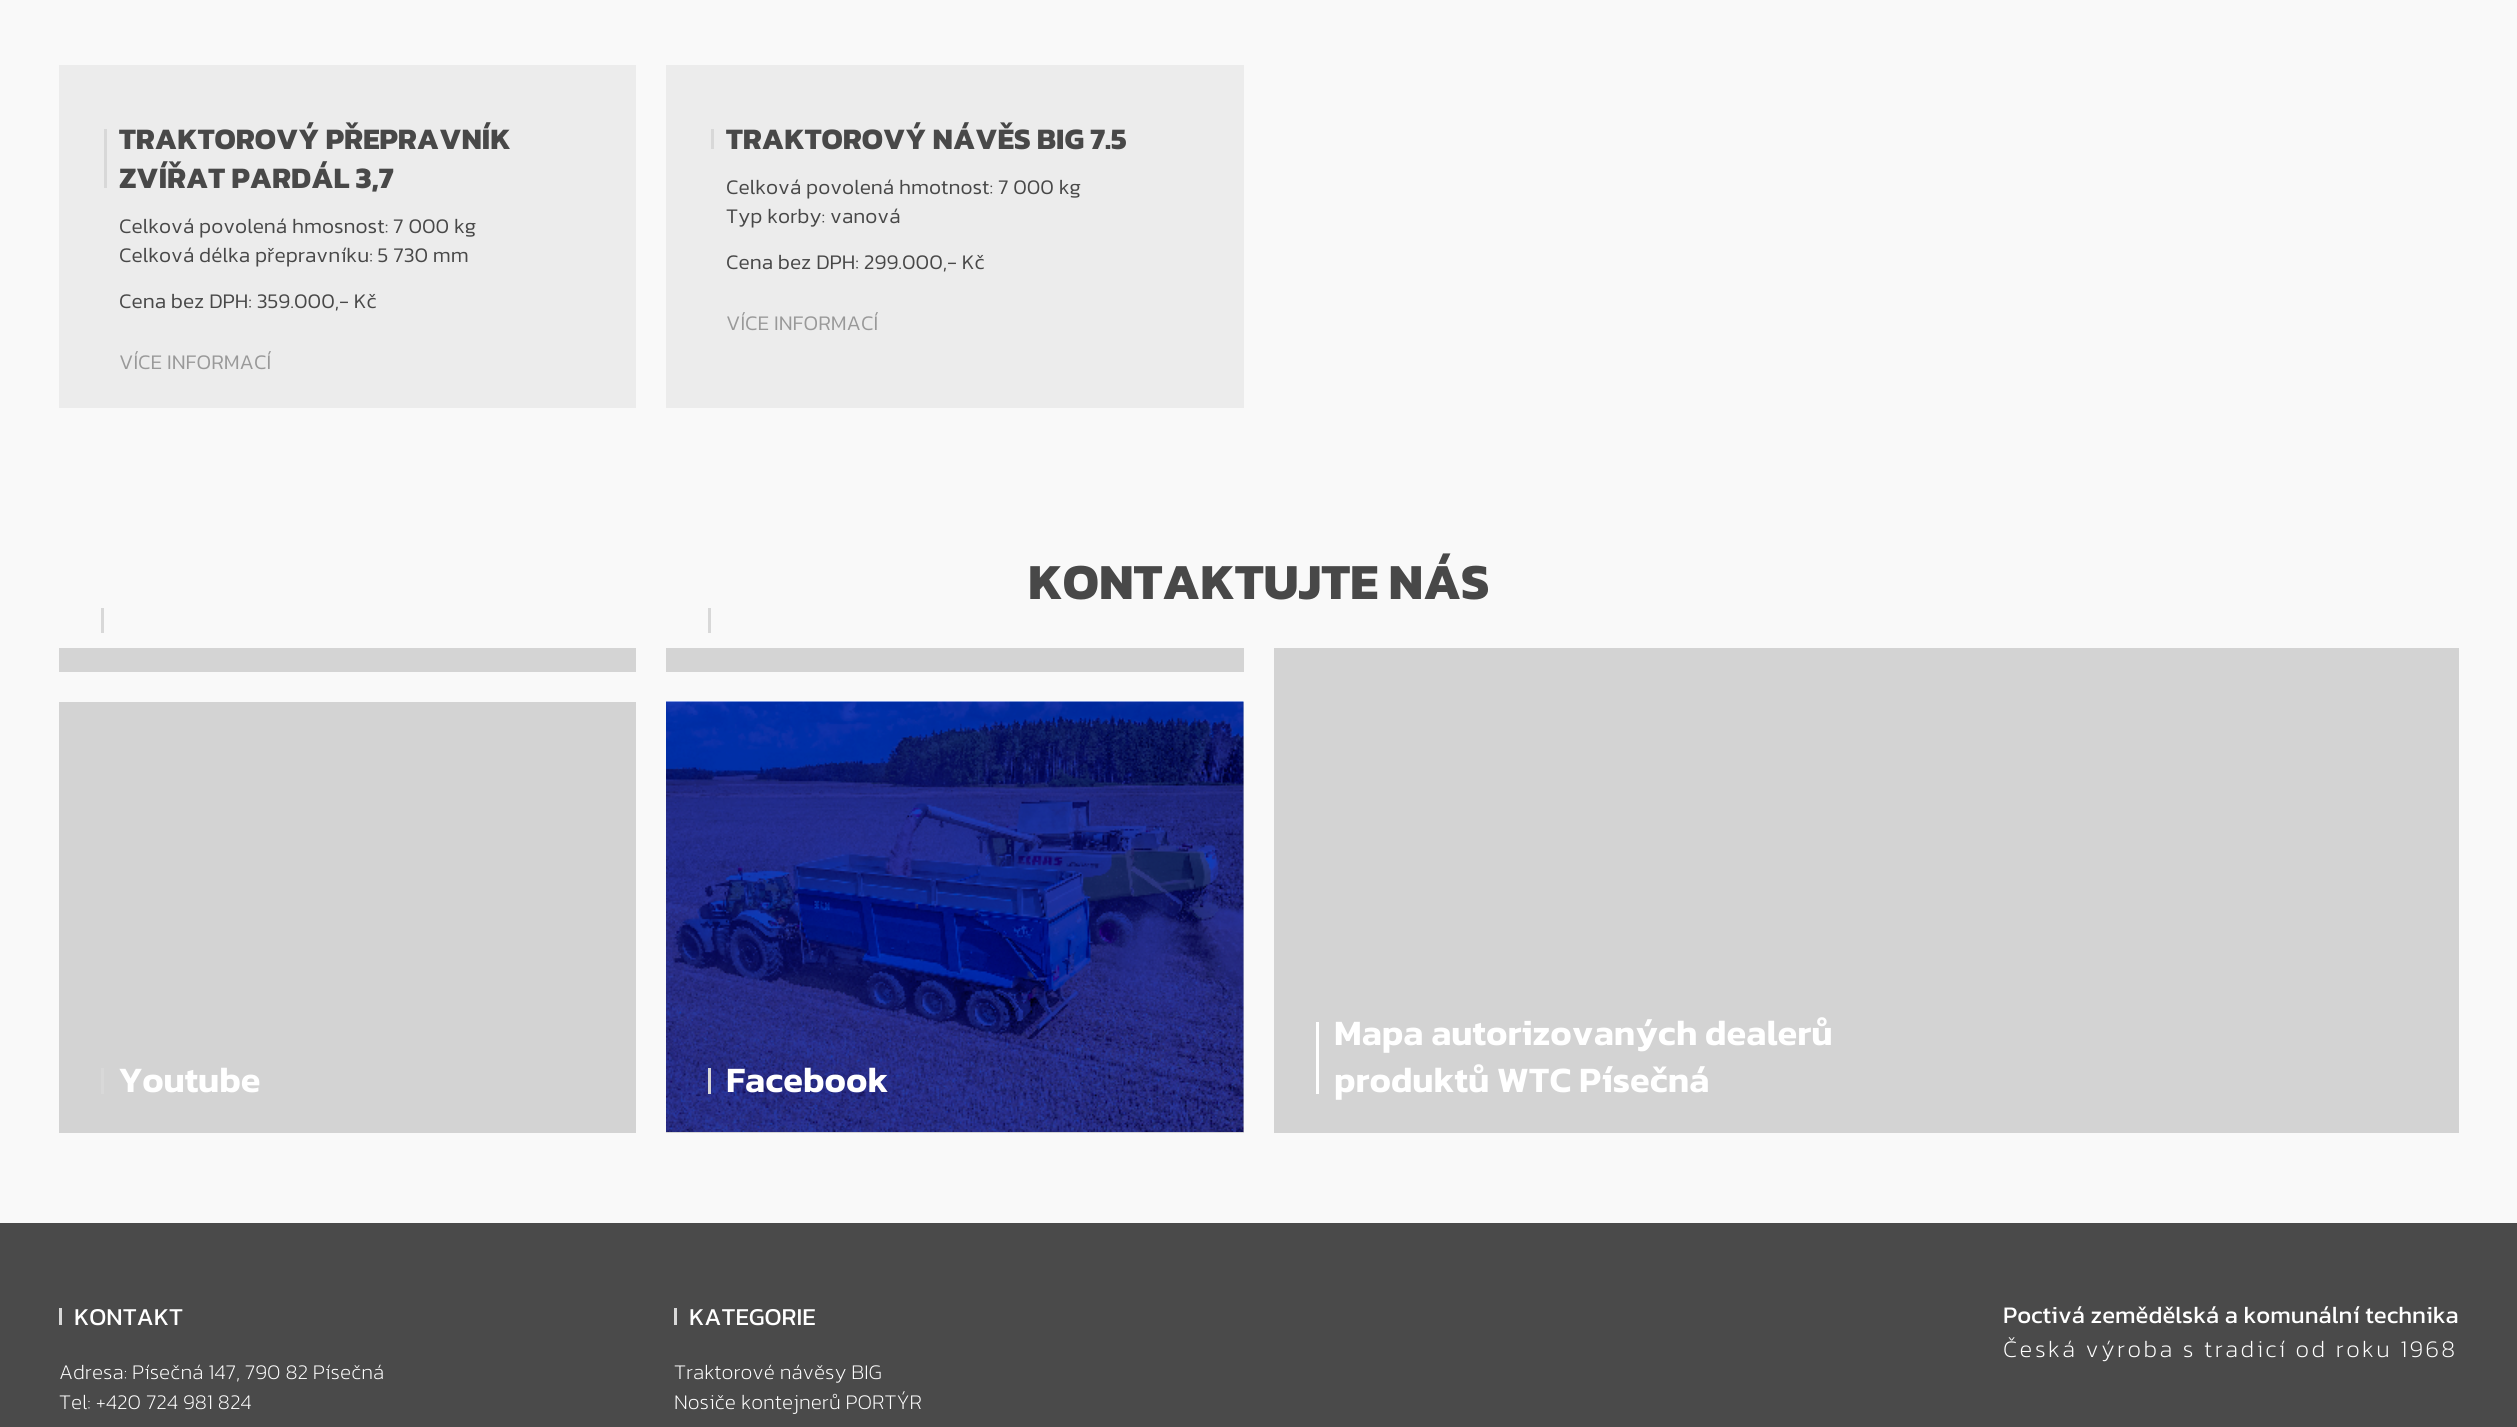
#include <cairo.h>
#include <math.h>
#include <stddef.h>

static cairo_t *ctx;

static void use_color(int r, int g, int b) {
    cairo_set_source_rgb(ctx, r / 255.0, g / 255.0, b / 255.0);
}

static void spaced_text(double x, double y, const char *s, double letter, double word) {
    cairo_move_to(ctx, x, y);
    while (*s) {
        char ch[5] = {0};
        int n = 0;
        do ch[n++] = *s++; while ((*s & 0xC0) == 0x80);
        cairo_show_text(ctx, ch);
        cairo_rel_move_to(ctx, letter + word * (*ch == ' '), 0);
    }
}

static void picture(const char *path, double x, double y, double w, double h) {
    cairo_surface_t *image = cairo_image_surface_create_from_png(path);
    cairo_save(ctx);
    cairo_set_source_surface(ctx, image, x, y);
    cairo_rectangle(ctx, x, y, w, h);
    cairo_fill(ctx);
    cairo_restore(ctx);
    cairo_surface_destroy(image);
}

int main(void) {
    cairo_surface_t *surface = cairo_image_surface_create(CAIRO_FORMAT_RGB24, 2517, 1427);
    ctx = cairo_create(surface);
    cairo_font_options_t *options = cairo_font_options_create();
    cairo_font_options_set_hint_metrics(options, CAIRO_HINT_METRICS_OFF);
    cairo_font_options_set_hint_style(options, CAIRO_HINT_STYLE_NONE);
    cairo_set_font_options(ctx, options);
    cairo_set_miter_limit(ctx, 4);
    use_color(249, 249, 249);
    cairo_paint(ctx);
    use_color(236, 236, 236);
    cairo_rectangle(ctx, 59, 65, 577, 343);
    cairo_fill(ctx);
    use_color(216, 216, 216);
    cairo_rectangle(ctx, 104, 129, 3, 59);
    cairo_fill(ctx);
    cairo_select_font_face(ctx, "Kanit", CAIRO_FONT_SLANT_NORMAL, CAIRO_FONT_WEIGHT_BOLD);
    cairo_set_font_size(ctx, 30);
    use_color(72, 72, 72);
    cairo_move_to(ctx, 119, 149);
    cairo_show_text(ctx, "TRAKTOROVÝ PŘEPRAVNÍK");
    cairo_move_to(ctx, 119, 188);
    cairo_show_text(ctx, "ZVÍŘAT PARDÁL 3,7");
    cairo_select_font_face(ctx, "Kanit Light", CAIRO_FONT_SLANT_NORMAL, CAIRO_FONT_WEIGHT_NORMAL);
    cairo_set_font_size(ctx, 21);
    cairo_move_to(ctx, 119, 233);
    cairo_show_text(ctx, "Celková povolená hmosnost: 7 000 kg");
    cairo_move_to(ctx, 119, 262);
    cairo_show_text(ctx, "Celková délka přepravníku: 5 730 mm");
    cairo_move_to(ctx, 119, 308);
    cairo_show_text(ctx, "Cena bez DPH: 359.000,- Kč");
    use_color(153, 153, 153);
    cairo_move_to(ctx, 119, 369);
    cairo_show_text(ctx, "VÍCE INFORMACÍ");
    use_color(236, 236, 236);
    cairo_rectangle(ctx, 666, 65, 578, 343);
    cairo_fill(ctx);
    use_color(216, 216, 216);
    cairo_rectangle(ctx, 711, 129, 3, 20);
    cairo_fill(ctx);
    cairo_select_font_face(ctx, "Kanit", CAIRO_FONT_SLANT_NORMAL, CAIRO_FONT_WEIGHT_BOLD);
    cairo_set_font_size(ctx, 30);
    use_color(72, 72, 72);
    cairo_move_to(ctx, 726, 149);
    cairo_show_text(ctx, "TRAKTOROVÝ NÁVĚS BIG 7.5");
    cairo_select_font_face(ctx, "Kanit Light", CAIRO_FONT_SLANT_NORMAL, CAIRO_FONT_WEIGHT_NORMAL);
    cairo_set_font_size(ctx, 21);
    cairo_move_to(ctx, 726, 194);
    cairo_show_text(ctx, "Celková povolená hmotnost: 7 000 kg");
    cairo_move_to(ctx, 726, 223);
    cairo_show_text(ctx, "Typ korby: vanová");
    cairo_move_to(ctx, 726, 269);
    cairo_show_text(ctx, "Cena bez DPH: 299.000,- Kč");
    use_color(153, 153, 153);
    cairo_move_to(ctx, 726, 330);
    cairo_show_text(ctx, "VÍCE INFORMACÍ");
    use_color(212, 212, 212);
    cairo_rectangle(ctx, 666, 702, 578, 431);
    cairo_fill(ctx);
    cairo_select_font_face(ctx, "Kanit", CAIRO_FONT_SLANT_NORMAL, CAIRO_FONT_WEIGHT_BOLD);
    cairo_set_font_size(ctx, 51);
    use_color(72, 72, 72);
    cairo_move_to(ctx, 1028, 599);
    cairo_show_text(ctx, "KONTAKTUJTE NÁS");
    use_color(216, 216, 216);
    cairo_rectangle(ctx, 101, 608, 3, 25);
    cairo_fill(ctx);
    use_color(212, 212, 212);
    cairo_rectangle(ctx, 59, 648, 577, 24);
    cairo_fill(ctx);
    use_color(216, 216, 216);
    cairo_rectangle(ctx, 708, 608, 3, 25);
    cairo_fill(ctx);
    use_color(212, 212, 212);
    cairo_rectangle(ctx, 666, 648, 578, 24);
    cairo_fill(ctx);
    use_color(211, 211, 211);
    cairo_rectangle(ctx, 59, 702, 577, 431);
    cairo_fill(ctx);
    use_color(216, 216, 216);
    cairo_rectangle(ctx, 101, 1068, 3, 26);
    cairo_fill(ctx);
    cairo_select_font_face(ctx, "Kanit SemiBold", CAIRO_FONT_SLANT_NORMAL, CAIRO_FONT_WEIGHT_NORMAL);
    cairo_set_font_size(ctx, 36);
    use_color(255, 255, 255);
    cairo_move_to(ctx, 119, 1092);
    cairo_show_text(ctx, "Youtube");
    picture("img1.png", 666, 701, 578, 431);
    use_color(216, 216, 216);
    cairo_rectangle(ctx, 708, 1068, 3, 26);
    cairo_fill(ctx);
    use_color(255, 255, 255);
    cairo_move_to(ctx, 726, 1092);
    cairo_show_text(ctx, "Facebook");
    use_color(211, 211, 211);
    cairo_rectangle(ctx, 1274, 648, 1185, 485);
    cairo_fill(ctx);
    use_color(255, 255, 255);
    cairo_rectangle(ctx, 1316, 1022, 3, 72);
    cairo_fill(ctx);
    cairo_move_to(ctx, 1334, 1045);
    cairo_show_text(ctx, "Mapa autorizovaných dealerů");
    cairo_move_to(ctx, 1334, 1092);
    cairo_show_text(ctx, "produktů WTC Písečná");
    use_color(74, 74, 74);
    cairo_rectangle(ctx, 0, 1223, 2517, 204);
    cairo_fill(ctx);
    use_color(216, 216, 216);
    cairo_rectangle(ctx, 59, 1308, 3, 17);
    cairo_fill(ctx);
    cairo_select_font_face(ctx, "Kanit", CAIRO_FONT_SLANT_NORMAL, CAIRO_FONT_WEIGHT_NORMAL);
    cairo_set_font_size(ctx, 24.5);
    use_color(255, 255, 255);
    cairo_move_to(ctx, 74, 1325);
    cairo_show_text(ctx, "KONTAKT");
    cairo_select_font_face(ctx, "Kanit ExtraLight", CAIRO_FONT_SLANT_NORMAL, CAIRO_FONT_WEIGHT_NORMAL);
    cairo_set_font_size(ctx, 21);
    cairo_move_to(ctx, 59, 1379);
    cairo_show_text(ctx, "Adresa: Písečná 147, 790 82 Písečná");
    cairo_move_to(ctx, 59, 1409);
    cairo_show_text(ctx, "Tel: +420 724 981 824");
    use_color(216, 216, 216);
    cairo_rectangle(ctx, 674, 1308, 3, 17);
    cairo_fill(ctx);
    cairo_select_font_face(ctx, "Kanit", CAIRO_FONT_SLANT_NORMAL, CAIRO_FONT_WEIGHT_NORMAL);
    cairo_set_font_size(ctx, 24.5);
    use_color(255, 255, 255);
    cairo_move_to(ctx, 689, 1325);
    cairo_show_text(ctx, "KATEGORIE");
    cairo_select_font_face(ctx, "Kanit ExtraLight", CAIRO_FONT_SLANT_NORMAL, CAIRO_FONT_WEIGHT_NORMAL);
    cairo_set_font_size(ctx, 21);
    cairo_move_to(ctx, 674, 1379);
    cairo_show_text(ctx, "Traktorové návěsy BIG");
    cairo_move_to(ctx, 674, 1409);
    cairo_show_text(ctx, "Nosiče kontejnerů PORTÝR");
    cairo_select_font_face(ctx, "Kanit", CAIRO_FONT_SLANT_NORMAL, CAIRO_FONT_WEIGHT_NORMAL);
    cairo_set_font_size(ctx, 24);
    cairo_move_to(ctx, 2003, 1323);
    cairo_show_text(ctx, "Poctivá zemědělská a komunální technika");
    cairo_select_font_face(ctx, "Kanit ExtraLight", CAIRO_FONT_SLANT_NORMAL, CAIRO_FONT_WEIGHT_NORMAL);
    spaced_text(2003, 1357, "Česká výroba s tradicí od roku 1968", 2.45, 0);
    cairo_surface_write_to_png(surface, "result.png");
    cairo_font_options_destroy(options);
    cairo_destroy(ctx);
    cairo_surface_destroy(surface);
    return 0;
}
